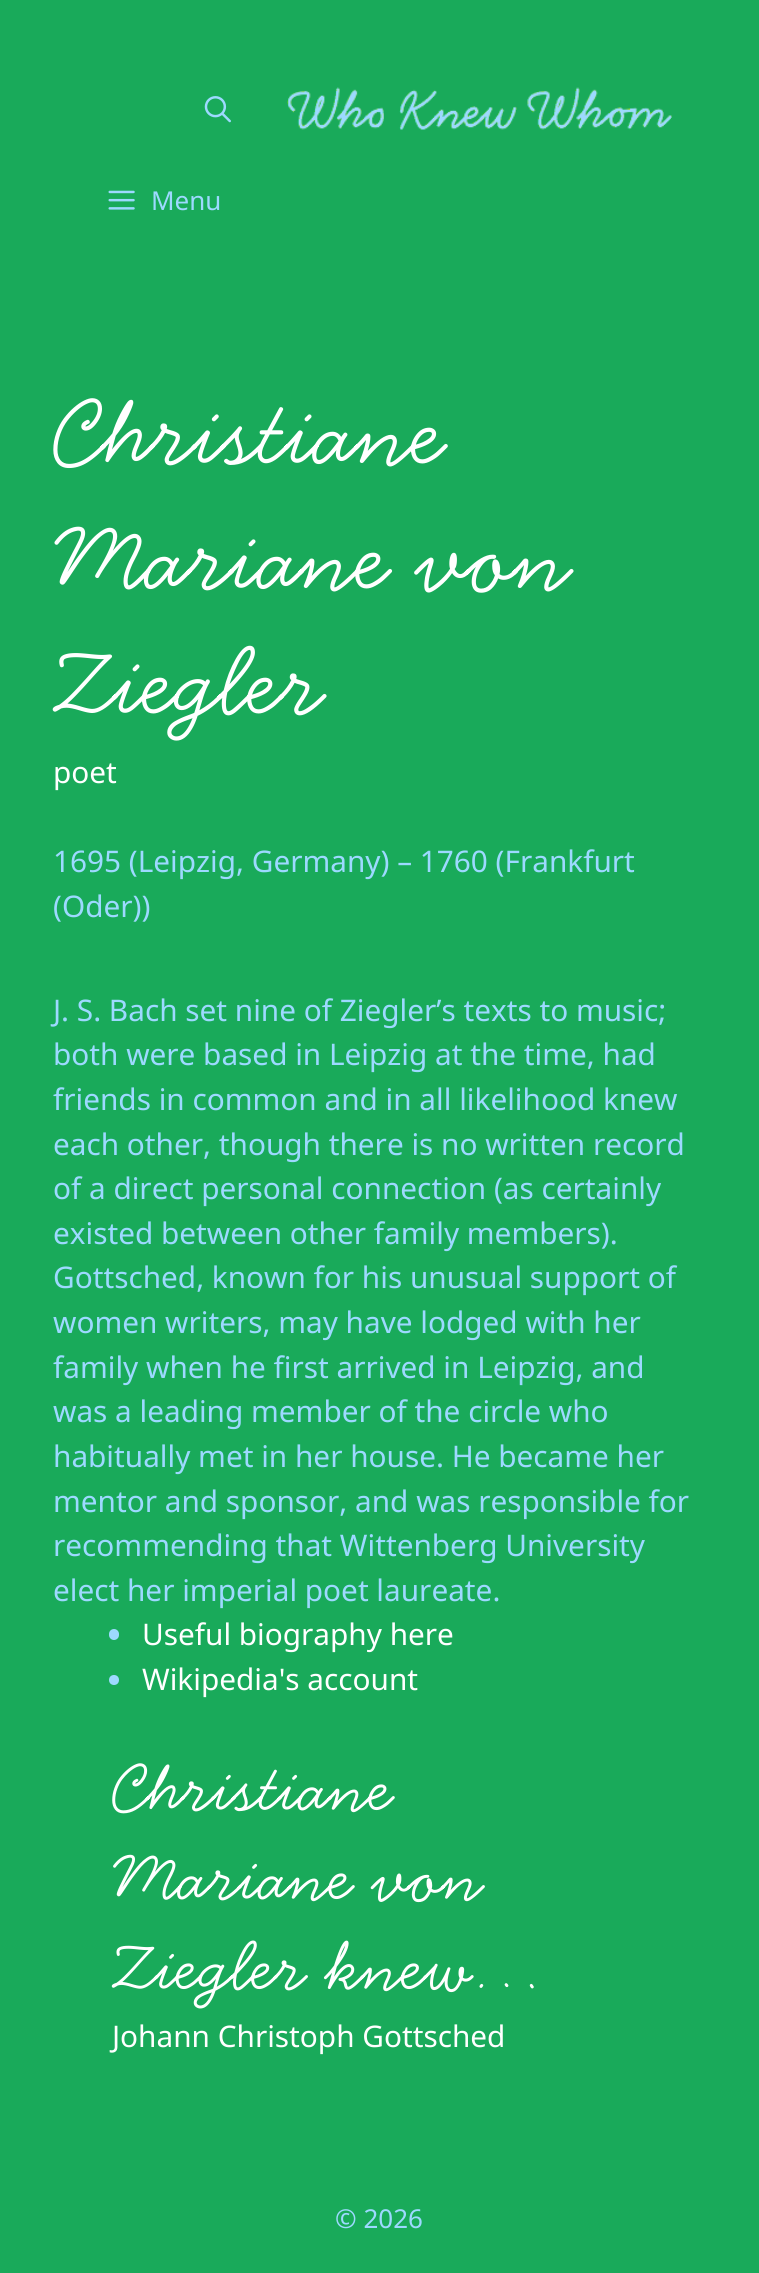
#include <cairo.h>
#include <math.h>
#include <stddef.h>

static cairo_t *ctx;

static void use_color(int r, int g, int b) {
    cairo_set_source_rgb(ctx, r / 255.0, g / 255.0, b / 255.0);
}

static void round_rect(double x, double y, double w, double h, double r) {
    cairo_new_sub_path(ctx);
    cairo_arc(ctx, x + w - r, y + h - r, r, 0, M_PI / 2);
    cairo_arc(ctx, x + r, y + h - r, r, M_PI / 2, M_PI);
    cairo_arc(ctx, x + r, y + r, r, M_PI, 1.5 * M_PI);
    cairo_arc(ctx, x + w - r, y + r, r, 1.5 * M_PI, 2 * M_PI);
    cairo_close_path(ctx);
}

static void picture(const char *path, double x, double y, double w, double h) {
    cairo_surface_t *image = cairo_image_surface_create_from_png(path);
    cairo_save(ctx);
    cairo_set_source_surface(ctx, image, x, y);
    cairo_rectangle(ctx, x, y, w, h);
    cairo_fill(ctx);
    cairo_restore(ctx);
    cairo_surface_destroy(image);
}

int main(void) {
    cairo_surface_t *surface = cairo_image_surface_create(CAIRO_FORMAT_RGB24, 759, 2273);
    ctx = cairo_create(surface);
    cairo_font_options_t *options = cairo_font_options_create();
    cairo_font_options_set_hint_metrics(options, CAIRO_HINT_METRICS_OFF);
    cairo_font_options_set_hint_style(options, CAIRO_HINT_STYLE_NONE);
    cairo_set_font_options(ctx, options);
    cairo_set_miter_limit(ctx, 4);
    use_color(25, 170, 90);
    cairo_paint(ctx);
    picture("img1.png", 204, 96, 27, 27);
    picture("img2.png", 287, 87, 385, 43);
    picture("img3.png", 108, 190, 27, 20);
    cairo_select_font_face(ctx, "Noto Sans", CAIRO_FONT_SLANT_NORMAL, CAIRO_FONT_WEIGHT_NORMAL);
    cairo_set_font_size(ctx, 26);
    use_color(157, 217, 255);
    cairo_move_to(ctx, 151, 210);
    cairo_show_text(ctx, "Menu");
    cairo_select_font_face(ctx, "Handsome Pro", CAIRO_FONT_SLANT_NORMAL, CAIRO_FONT_WEIGHT_NORMAL);
    cairo_set_font_size(ctx, 104);
    use_color(255, 255, 255);
    cairo_move_to(ctx, 53, 462);
    cairo_show_text(ctx, "Christiane");
    cairo_move_to(ctx, 53, 587);
    cairo_show_text(ctx, "Mariane von");
    cairo_move_to(ctx, 53, 712);
    cairo_show_text(ctx, "Ziegler");
    cairo_select_font_face(ctx, "Noto Sans", CAIRO_FONT_SLANT_NORMAL, CAIRO_FONT_WEIGHT_NORMAL);
    cairo_set_font_size(ctx, 29.75);
    cairo_move_to(ctx, 53, 783);
    cairo_show_text(ctx, "poet");
    use_color(157, 217, 255);
    cairo_move_to(ctx, 53, 872);
    cairo_show_text(ctx, "1695 (Leipzig, Germany) – 1760 (Frankfurt");
    cairo_move_to(ctx, 53, 917);
    cairo_show_text(ctx, "(Oder))");
    cairo_move_to(ctx, 53, 1021);
    cairo_show_text(ctx, "J. S. Bach set nine of Ziegler’s texts to music;");
    cairo_move_to(ctx, 53, 1065);
    cairo_show_text(ctx, "both were based in Leipzig at the time, had");
    cairo_move_to(ctx, 53, 1110);
    cairo_show_text(ctx, "friends in common and in all likelihood knew");
    cairo_move_to(ctx, 53, 1155);
    cairo_show_text(ctx, "each other, though there is no written record");
    cairo_move_to(ctx, 53, 1199);
    cairo_show_text(ctx, "of a direct personal connection (as certainly");
    cairo_move_to(ctx, 53, 1244);
    cairo_show_text(ctx, "existed between other family members).");
    cairo_move_to(ctx, 53, 1288);
    cairo_show_text(ctx, "Gottsched, known for his unusual support of");
    cairo_move_to(ctx, 53, 1333);
    cairo_show_text(ctx, "women writers, may have lodged with her");
    cairo_move_to(ctx, 53, 1378);
    cairo_show_text(ctx, "family when he first arrived in Leipzig, and");
    cairo_move_to(ctx, 53, 1422);
    cairo_show_text(ctx, "was a leading member of the circle who");
    cairo_move_to(ctx, 53, 1467);
    cairo_show_text(ctx, "habitually met in her house. He became her");
    cairo_move_to(ctx, 53, 1512);
    cairo_show_text(ctx, "mentor and sponsor, and was responsible for");
    cairo_move_to(ctx, 53, 1556);
    cairo_show_text(ctx, "recommending that Wittenberg University");
    cairo_move_to(ctx, 53, 1601);
    cairo_show_text(ctx, "elect her imperial poet laureate.");
    round_rect(109, 1629, 10, 11, 5);
    cairo_fill(ctx);
    use_color(255, 255, 255);
    cairo_move_to(ctx, 142, 1645);
    cairo_show_text(ctx, "Useful biography here");
    use_color(157, 217, 255);
    cairo_new_path(ctx);
    cairo_arc(ctx, 114, 1680, 5, 0, 2 * M_PI);
    cairo_fill(ctx);
    use_color(255, 255, 255);
    cairo_move_to(ctx, 142, 1690);
    cairo_show_text(ctx, "Wikipedia's account");
    cairo_select_font_face(ctx, "Handsome Pro", CAIRO_FONT_SLANT_NORMAL, CAIRO_FONT_WEIGHT_NORMAL);
    cairo_set_font_size(ctx, 74.5);
    cairo_move_to(ctx, 112, 1809);
    cairo_show_text(ctx, "Christiane");
    cairo_move_to(ctx, 112, 1898);
    cairo_show_text(ctx, "Mariane von");
    cairo_move_to(ctx, 112, 1988);
    cairo_show_text(ctx, "Ziegler knew…");
    cairo_select_font_face(ctx, "Noto Sans", CAIRO_FONT_SLANT_NORMAL, CAIRO_FONT_WEIGHT_NORMAL);
    cairo_set_font_size(ctx, 29.75);
    cairo_move_to(ctx, 112, 2047);
    cairo_show_text(ctx, "Johann Christoph Gottsched");
    cairo_set_font_size(ctx, 26);
    use_color(157, 217, 255);
    cairo_move_to(ctx, 335, 2228);
    cairo_show_text(ctx, "© 2026");
    cairo_surface_write_to_png(surface, "result.png");
    cairo_font_options_destroy(options);
    cairo_destroy(ctx);
    cairo_surface_destroy(surface);
    return 0;
}
